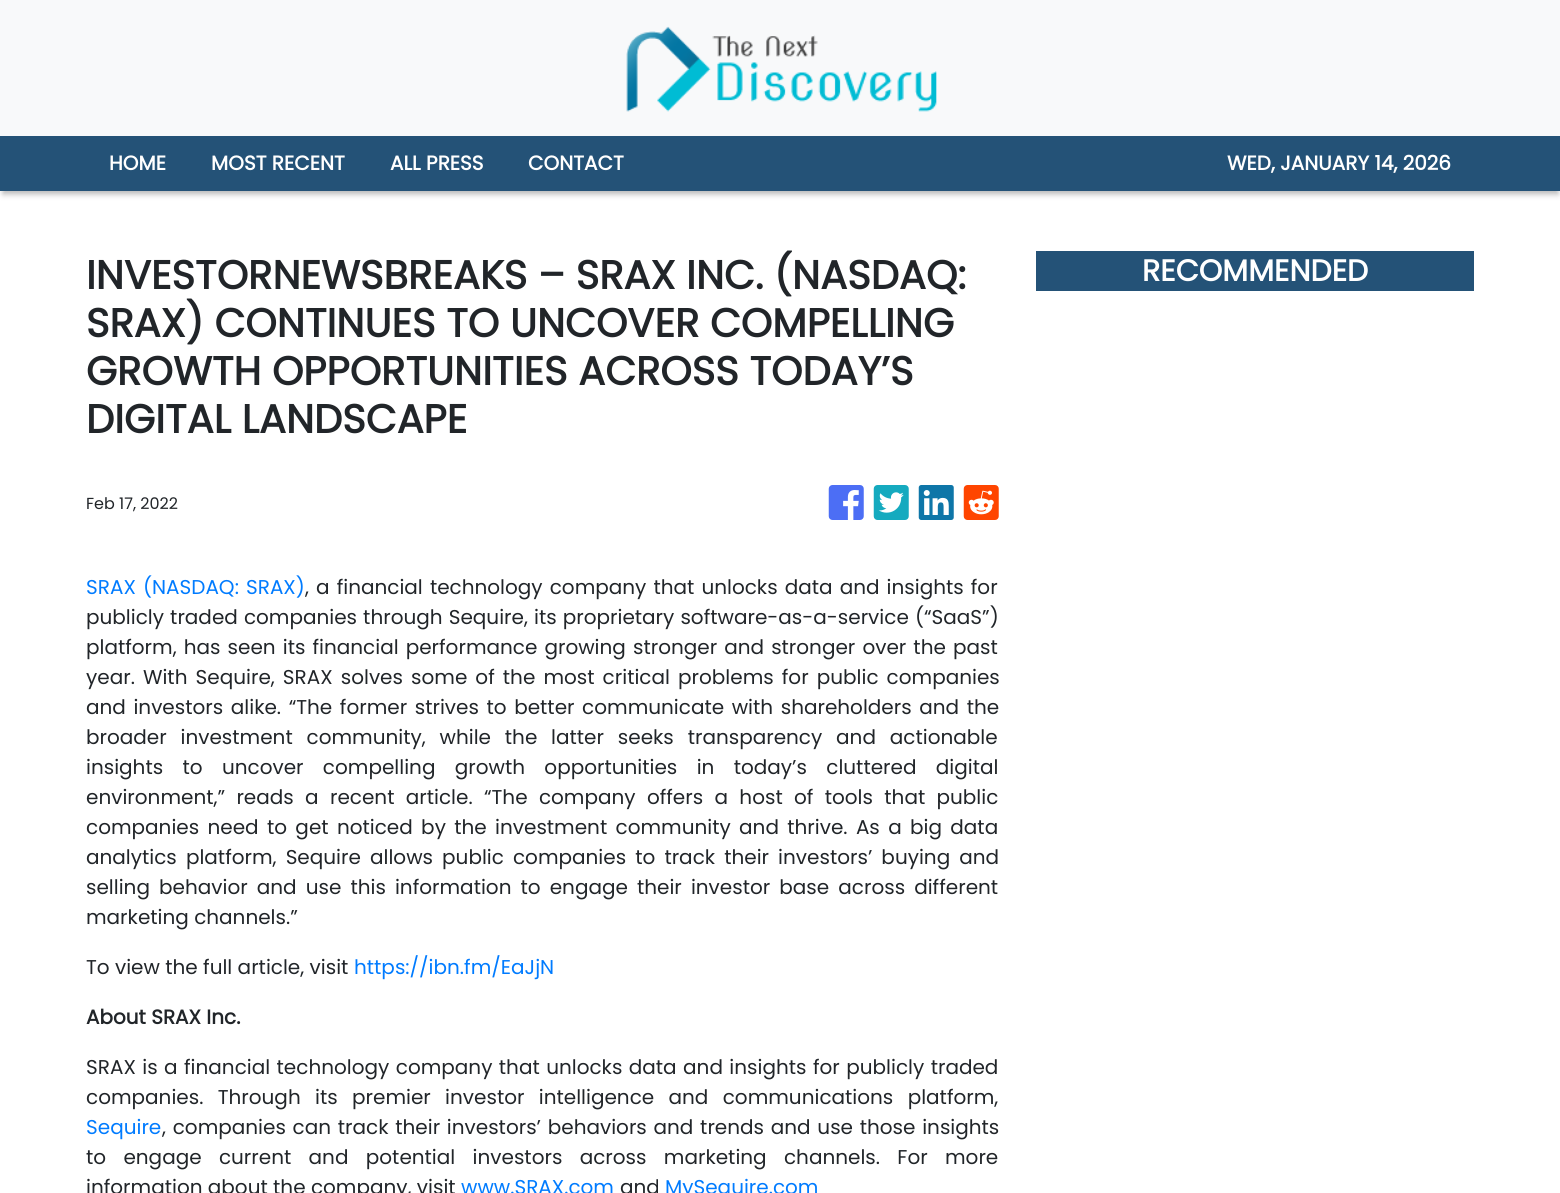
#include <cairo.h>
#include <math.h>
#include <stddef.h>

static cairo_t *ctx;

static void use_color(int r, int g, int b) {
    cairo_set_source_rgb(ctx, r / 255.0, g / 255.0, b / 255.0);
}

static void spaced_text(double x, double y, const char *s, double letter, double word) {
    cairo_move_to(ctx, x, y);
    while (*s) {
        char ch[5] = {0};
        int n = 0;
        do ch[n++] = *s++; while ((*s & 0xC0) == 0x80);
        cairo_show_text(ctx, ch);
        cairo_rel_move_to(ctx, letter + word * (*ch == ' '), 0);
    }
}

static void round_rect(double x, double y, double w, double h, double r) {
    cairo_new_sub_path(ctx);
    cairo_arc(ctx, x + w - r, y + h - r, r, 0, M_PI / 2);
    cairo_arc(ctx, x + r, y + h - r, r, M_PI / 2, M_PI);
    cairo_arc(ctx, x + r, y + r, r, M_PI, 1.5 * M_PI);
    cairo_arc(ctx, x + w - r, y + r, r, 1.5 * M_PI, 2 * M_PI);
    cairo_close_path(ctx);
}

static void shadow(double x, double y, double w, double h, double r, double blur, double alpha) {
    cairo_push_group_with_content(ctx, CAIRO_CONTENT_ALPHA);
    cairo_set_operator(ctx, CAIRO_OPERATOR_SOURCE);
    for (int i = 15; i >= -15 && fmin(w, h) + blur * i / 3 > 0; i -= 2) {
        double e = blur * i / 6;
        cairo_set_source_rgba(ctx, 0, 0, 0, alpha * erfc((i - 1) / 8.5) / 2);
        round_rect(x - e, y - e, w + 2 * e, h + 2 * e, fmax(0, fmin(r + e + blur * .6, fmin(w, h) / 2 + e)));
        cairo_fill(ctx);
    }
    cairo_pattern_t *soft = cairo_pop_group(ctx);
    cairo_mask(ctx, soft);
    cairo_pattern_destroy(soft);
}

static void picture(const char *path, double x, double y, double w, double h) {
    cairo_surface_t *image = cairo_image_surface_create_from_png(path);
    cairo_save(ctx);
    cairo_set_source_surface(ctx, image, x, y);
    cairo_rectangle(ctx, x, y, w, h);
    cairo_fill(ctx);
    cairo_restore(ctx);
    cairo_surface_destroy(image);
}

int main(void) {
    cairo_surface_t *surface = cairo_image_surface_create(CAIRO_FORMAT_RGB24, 1560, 1193);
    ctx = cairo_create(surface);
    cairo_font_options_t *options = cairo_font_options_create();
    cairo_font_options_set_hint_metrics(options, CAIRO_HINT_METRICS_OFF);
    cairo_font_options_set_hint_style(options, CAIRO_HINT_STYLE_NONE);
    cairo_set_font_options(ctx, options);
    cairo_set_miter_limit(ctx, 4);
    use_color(255, 255, 255);
    cairo_paint(ctx);
    use_color(248, 249, 250);
    cairo_rectangle(ctx, 0, 0, 1560, 136);
    cairo_fill(ctx);
    picture("img1.png", 626, 26, 311, 86);
    use_color(182, 182, 182);
    shadow(3, 144, 1555, 50, 0, 3, 1);
    use_color(36, 82, 119);
    cairo_rectangle(ctx, 0, 136, 1560, 55);
    cairo_fill(ctx);
    cairo_select_font_face(ctx, "Poppins", CAIRO_FONT_SLANT_NORMAL, CAIRO_FONT_WEIGHT_BOLD);
    cairo_set_font_size(ctx, 20);
    use_color(255, 255, 255);
    cairo_move_to(ctx, 109, 170);
    cairo_show_text(ctx, "HOME");
    cairo_move_to(ctx, 211, 170);
    cairo_show_text(ctx, "MOST RECENT");
    cairo_move_to(ctx, 390, 170);
    cairo_show_text(ctx, "ALL PRESS");
    cairo_move_to(ctx, 528, 170);
    cairo_show_text(ctx, "CONTACT");
    cairo_move_to(ctx, 1227, 170);
    cairo_show_text(ctx, "WED, JANUARY 14, 2026");
    cairo_set_font_size(ctx, 40);
    use_color(33, 37, 41);
    cairo_move_to(ctx, 86, 289);
    cairo_show_text(ctx, "INVESTORNEWSBREAKS – SRAX INC. (NASDAQ:");
    cairo_move_to(ctx, 86, 337);
    cairo_show_text(ctx, "SRAX) CONTINUES TO UNCOVER COMPELLING");
    cairo_move_to(ctx, 86, 385);
    cairo_show_text(ctx, "GROWTH OPPORTUNITIES ACROSS TODAY’S");
    cairo_move_to(ctx, 86, 433);
    cairo_show_text(ctx, "DIGITAL LANDSCAPE");
    cairo_select_font_face(ctx, "Poppins", CAIRO_FONT_SLANT_NORMAL, CAIRO_FONT_WEIGHT_NORMAL);
    cairo_set_font_size(ctx, 16);
    cairo_move_to(ctx, 86, 509);
    cairo_show_text(ctx, "Feb 17, 2022");
    picture("img2.png", 828, 485, 36, 35);
    picture("img3.png", 873, 485, 36, 35);
    picture("img4.png", 918, 485, 36, 35);
    picture("img5.png", 963, 485, 36, 35);
    cairo_set_font_size(ctx, 20);
    use_color(0, 123, 255);
    spaced_text(86, 594, "SRAX (NASDAQ: SRAX)", 0, 1.75);
    use_color(33, 37, 41);
    spaced_text(305, 594, ", a financial technology company that unlocks data and insights for", 0, 1.75);
    spaced_text(86, 624, "publicly traded companies through Sequire, its proprietary software-as-a-service (“SaaS”)", 0, 0.75);
    spaced_text(86, 654, "platform, has seen its financial performance growing stronger and stronger over the past", 0, 1.75);
    spaced_text(86, 684, "year. With Sequire, SRAX solves some of the most critical problems for public companies", 0, 2.75);
    spaced_text(86, 714, "and investors alike. “The former strives to better communicate with shareholders and the", 0, 2.25);
    spaced_text(86, 744, "broader investment community, while the latter seeks transparency and actionable", 0, 8.5);
    spaced_text(86, 774, "insights to uncover compelling growth opportunities in today’s cluttered digital", 0, 14);
    spaced_text(86, 804, "environment,” reads a recent article. “The company offers a host of tools that public", 0, 6);
    spaced_text(86, 834, "companies need to get noticed by the investment community and thrive. As a big data", 0, 3);
    spaced_text(86, 864, "analytics platform, Sequire allows public companies to track their investors’ buying and", 0, 3.75);
    spaced_text(86, 894, "selling behavior and use this information to engage their investor base across different", 0, 3.75);
    cairo_move_to(ctx, 86, 924);
    cairo_show_text(ctx, "marketing channels.”");
    cairo_move_to(ctx, 86, 974);
    cairo_show_text(ctx, "To view the full article, visit");
    use_color(0, 123, 255);
    cairo_move_to(ctx, 354, 974);
    cairo_show_text(ctx, "https://ibn.fm/EaJjN");
    cairo_select_font_face(ctx, "Poppins", CAIRO_FONT_SLANT_NORMAL, CAIRO_FONT_WEIGHT_BOLD);
    use_color(33, 37, 41);
    cairo_move_to(ctx, 86, 1024);
    cairo_show_text(ctx, "About SRAX Inc.");
    cairo_select_font_face(ctx, "Poppins", CAIRO_FONT_SLANT_NORMAL, CAIRO_FONT_WEIGHT_NORMAL);
    spaced_text(86, 1074, "SRAX is a financial technology company that unlocks data and insights for publicly traded", 0, 1.1);
    spaced_text(86, 1104, "companies. Through its premier investor intelligence and communications platform,", 0, 9);
    use_color(0, 123, 255);
    cairo_move_to(ctx, 86, 1134);
    cairo_show_text(ctx, "Sequire");
    use_color(33, 37, 41);
    spaced_text(162, 1134, ", companies can track their investors’ behaviors and trends and use those insights", 0, 1.4);
    spaced_text(86, 1164, "to engage current and potential investors across marketing channels. For more", 0, 12);
    cairo_move_to(ctx, 86, 1194);
    cairo_show_text(ctx, "information about the company, visit");
    use_color(0, 123, 255);
    cairo_move_to(ctx, 461, 1194);
    cairo_show_text(ctx, "www.SRAX.com");
    use_color(33, 37, 41);
    cairo_move_to(ctx, 620, 1194);
    cairo_show_text(ctx, "and");
    use_color(0, 123, 255);
    cairo_move_to(ctx, 665, 1194);
    cairo_show_text(ctx, "MySequire.com");
    use_color(36, 82, 119);
    cairo_rectangle(ctx, 1036, 251, 438, 40);
    cairo_fill(ctx);
    cairo_select_font_face(ctx, "Poppins", CAIRO_FONT_SLANT_NORMAL, CAIRO_FONT_WEIGHT_BOLD);
    cairo_set_font_size(ctx, 30);
    use_color(255, 255, 255);
    cairo_move_to(ctx, 1142, 281);
    cairo_show_text(ctx, "RECOMMENDED");
    cairo_surface_write_to_png(surface, "result.png");
    cairo_font_options_destroy(options);
    cairo_destroy(ctx);
    cairo_surface_destroy(surface);
    return 0;
}
